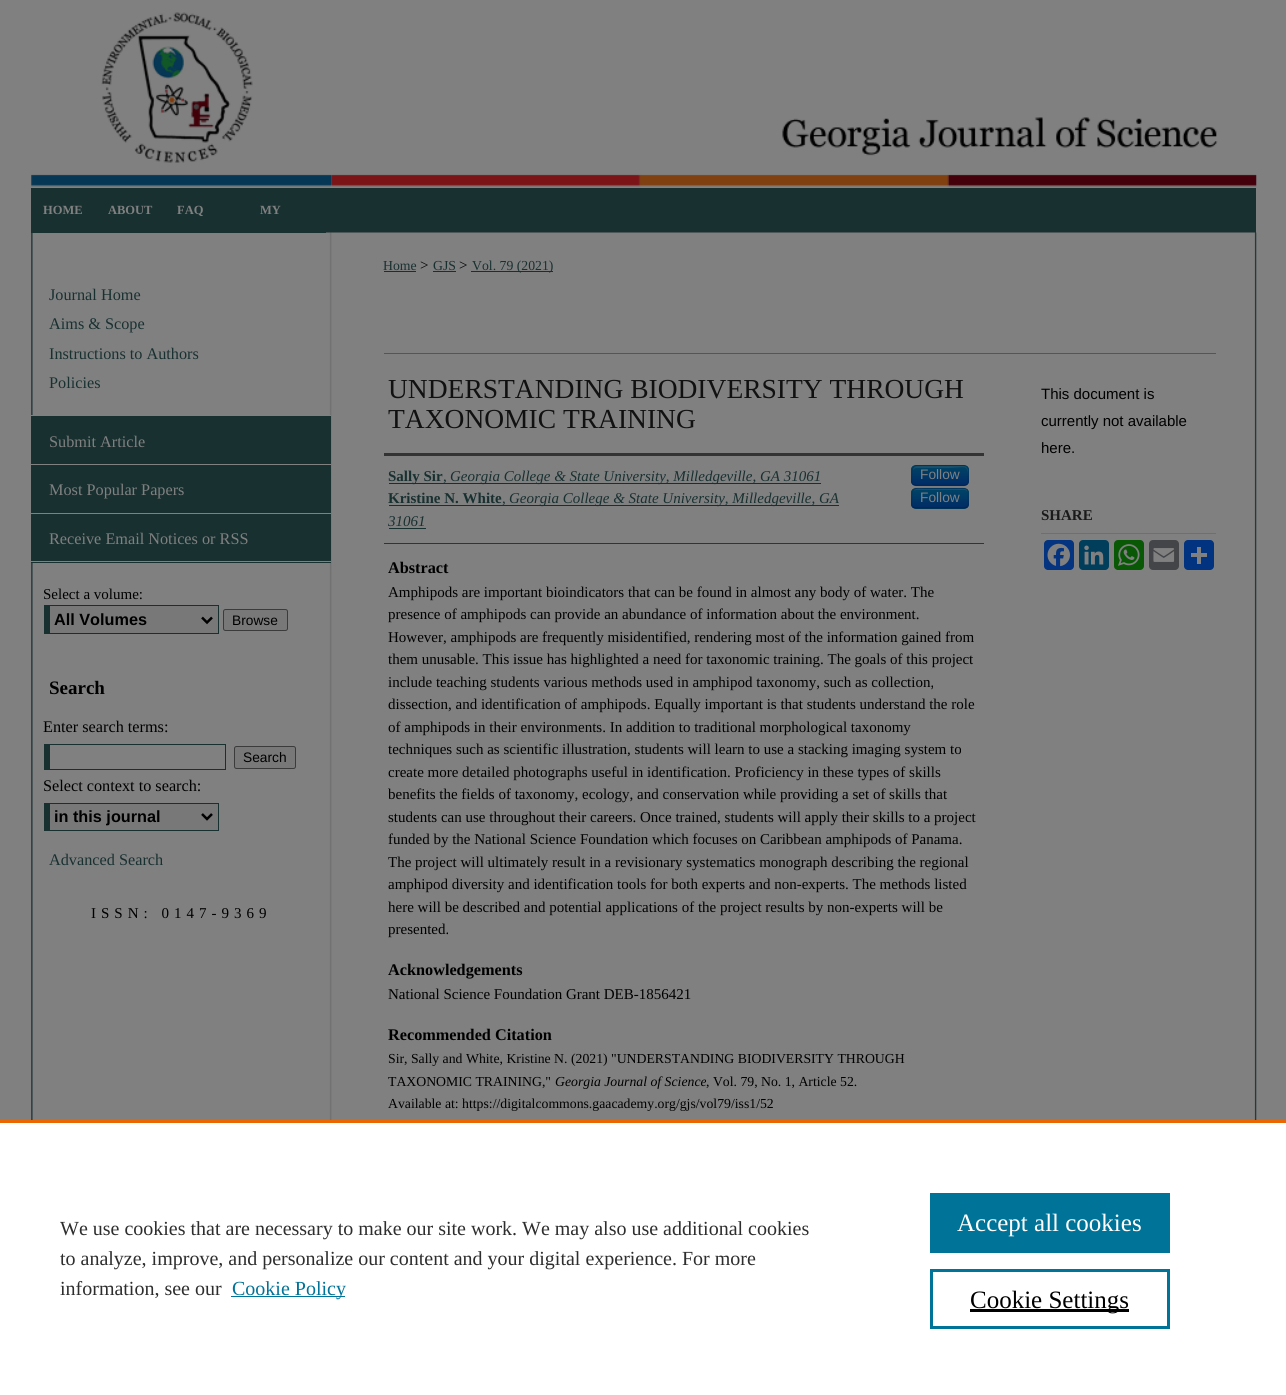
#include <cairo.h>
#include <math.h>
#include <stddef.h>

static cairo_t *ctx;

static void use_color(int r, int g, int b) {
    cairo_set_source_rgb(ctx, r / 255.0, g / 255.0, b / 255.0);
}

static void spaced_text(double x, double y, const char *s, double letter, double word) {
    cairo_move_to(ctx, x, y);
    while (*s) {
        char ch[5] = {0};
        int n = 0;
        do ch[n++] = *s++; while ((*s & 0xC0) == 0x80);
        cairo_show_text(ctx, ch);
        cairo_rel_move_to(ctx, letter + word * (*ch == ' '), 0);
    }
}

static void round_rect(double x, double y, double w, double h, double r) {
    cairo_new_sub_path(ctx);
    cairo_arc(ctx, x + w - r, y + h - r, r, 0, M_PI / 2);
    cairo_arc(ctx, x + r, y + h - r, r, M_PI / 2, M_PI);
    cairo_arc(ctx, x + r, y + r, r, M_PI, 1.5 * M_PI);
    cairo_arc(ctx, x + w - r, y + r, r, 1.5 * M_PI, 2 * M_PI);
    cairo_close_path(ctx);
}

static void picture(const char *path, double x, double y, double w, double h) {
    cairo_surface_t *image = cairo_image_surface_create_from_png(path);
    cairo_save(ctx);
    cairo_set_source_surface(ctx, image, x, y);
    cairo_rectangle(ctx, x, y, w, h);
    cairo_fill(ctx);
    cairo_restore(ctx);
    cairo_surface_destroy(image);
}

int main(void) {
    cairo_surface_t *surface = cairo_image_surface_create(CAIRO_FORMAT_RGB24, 1286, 1395);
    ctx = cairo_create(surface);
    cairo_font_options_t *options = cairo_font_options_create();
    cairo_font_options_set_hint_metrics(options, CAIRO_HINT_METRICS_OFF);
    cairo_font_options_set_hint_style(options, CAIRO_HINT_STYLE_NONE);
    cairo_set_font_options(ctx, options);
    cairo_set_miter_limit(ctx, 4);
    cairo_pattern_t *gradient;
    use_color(128, 128, 128);
    cairo_paint(ctx);
    picture("img2.png", 331, 117, 926, 70);
    picture("img1.png", 31, 12, 301, 175);
    use_color(25, 48, 48);
    cairo_rectangle(ctx, 326, 188, 930, 45);
    cairo_fill(ctx);
    picture("img3.png", 31, 232, 1226, 888);
    cairo_rectangle(ctx, 31, 188, 295, 45);
    cairo_fill(ctx);
    cairo_select_font_face(ctx, "Liberation Serif", CAIRO_FONT_SLANT_NORMAL, CAIRO_FONT_WEIGHT_BOLD);
    cairo_set_font_size(ctx, 12.5);
    use_color(128, 128, 128);
    cairo_move_to(ctx, 43, 214);
    cairo_show_text(ctx, "HOME");
    cairo_move_to(ctx, 108, 214);
    cairo_show_text(ctx, "ABOUT");
    cairo_move_to(ctx, 177, 214);
    cairo_show_text(ctx, "FAQ");
    cairo_move_to(ctx, 260, 214);
    cairo_show_text(ctx, "MY");
    cairo_select_font_face(ctx, "Liberation Serif", CAIRO_FONT_SLANT_NORMAL, CAIRO_FONT_WEIGHT_NORMAL);
    cairo_set_font_size(ctx, 16.25);
    use_color(25, 48, 48);
    cairo_move_to(ctx, 49, 300);
    cairo_show_text(ctx, "Journal Home");
    cairo_move_to(ctx, 49, 329);
    cairo_show_text(ctx, "Aims & Scope");
    cairo_move_to(ctx, 49, 359);
    cairo_show_text(ctx, "Instructions to Authors");
    cairo_move_to(ctx, 49, 388);
    cairo_show_text(ctx, "Policies");
    use_color(128, 128, 128);
    cairo_rectangle(ctx, 31, 415, 300, 1);
    cairo_fill(ctx);
    use_color(25, 48, 48);
    cairo_rectangle(ctx, 31, 416, 300, 48);
    cairo_fill(ctx);
    use_color(128, 128, 128);
    cairo_rectangle(ctx, 31, 464, 300, 1);
    cairo_fill(ctx);
    cairo_move_to(ctx, 49, 447);
    cairo_show_text(ctx, "Submit Article");
    use_color(25, 48, 48);
    cairo_rectangle(ctx, 31, 465, 300, 48);
    cairo_fill(ctx);
    use_color(128, 128, 128);
    cairo_rectangle(ctx, 31, 513, 300, 1);
    cairo_fill(ctx);
    cairo_move_to(ctx, 49, 495);
    cairo_show_text(ctx, "Most Popular Papers");
    use_color(25, 48, 48);
    cairo_rectangle(ctx, 31, 514, 300, 49);
    cairo_fill(ctx);
    use_color(128, 128, 128);
    cairo_rectangle(ctx, 31, 561, 300, 1);
    cairo_fill(ctx);
    cairo_move_to(ctx, 49, 544);
    cairo_show_text(ctx, "Receive Email Notices or RSS");
    cairo_set_font_size(ctx, 15);
    use_color(0, 0, 0);
    cairo_move_to(ctx, 43, 599);
    cairo_show_text(ctx, "Select a volume:");
    use_color(120, 120, 120);
    cairo_rectangle(ctx, 50, 606, 168, 27);
    cairo_fill(ctx);
    use_color(25, 48, 48);
    cairo_rectangle(ctx, 44, 605, 175, 1);
    cairo_fill(ctx);
    cairo_rectangle(ctx, 218, 605, 1, 29);
    cairo_fill(ctx);
    cairo_rectangle(ctx, 44, 633, 175, 1);
    cairo_fill(ctx);
    cairo_rectangle(ctx, 44, 605, 6, 29);
    cairo_fill(ctx);
    cairo_new_path(ctx);
    cairo_move_to(ctx, 202, 617.5);
    cairo_line_to(ctx, 207, 622.5);
    cairo_line_to(ctx, 212, 617.5);
    use_color(0, 0, 0);
    cairo_set_line_width(ctx, 2.5);
    cairo_stroke(ctx);
    cairo_select_font_face(ctx, "Liberation Sans", CAIRO_FONT_SLANT_NORMAL, CAIRO_FONT_WEIGHT_BOLD);
    cairo_set_font_size(ctx, 16.25);
    cairo_move_to(ctx, 54, 625);
    cairo_show_text(ctx, "All Volumes");
    use_color(120, 120, 120);
    round_rect(223.5, 609.5, 64, 21, 2);
    cairo_fill_preserve(ctx);
    use_color(59, 59, 59);
    cairo_set_line_width(ctx, 1);
    cairo_stroke(ctx);
    cairo_select_font_face(ctx, "Liberation Sans", CAIRO_FONT_SLANT_NORMAL, CAIRO_FONT_WEIGHT_NORMAL);
    cairo_set_font_size(ctx, 13.75);
    use_color(0, 0, 0);
    cairo_move_to(ctx, 232, 625);
    cairo_show_text(ctx, "Browse");
    cairo_select_font_face(ctx, "Liberation Serif", CAIRO_FONT_SLANT_NORMAL, CAIRO_FONT_WEIGHT_BOLD);
    cairo_set_font_size(ctx, 19);
    cairo_move_to(ctx, 49, 694);
    cairo_show_text(ctx, "Search");
    cairo_select_font_face(ctx, "Liberation Serif", CAIRO_FONT_SLANT_NORMAL, CAIRO_FONT_WEIGHT_NORMAL);
    cairo_set_font_size(ctx, 16.25);
    cairo_move_to(ctx, 43, 732);
    cairo_show_text(ctx, "Enter search terms:");
    use_color(25, 48, 48);
    cairo_rectangle(ctx, 44, 744, 182, 1);
    cairo_fill(ctx);
    cairo_rectangle(ctx, 225, 744, 1, 26);
    cairo_fill(ctx);
    cairo_rectangle(ctx, 44, 769, 182, 1);
    cairo_fill(ctx);
    cairo_rectangle(ctx, 44, 744, 6, 26);
    cairo_fill(ctx);
    use_color(120, 120, 120);
    round_rect(234.5, 746.5, 61, 22, 2);
    cairo_fill_preserve(ctx);
    use_color(59, 59, 59);
    cairo_stroke(ctx);
    cairo_select_font_face(ctx, "Liberation Sans", CAIRO_FONT_SLANT_NORMAL, CAIRO_FONT_WEIGHT_NORMAL);
    cairo_set_font_size(ctx, 13.75);
    use_color(0, 0, 0);
    cairo_move_to(ctx, 243, 762);
    cairo_show_text(ctx, "Search");
    cairo_select_font_face(ctx, "Liberation Serif", CAIRO_FONT_SLANT_NORMAL, CAIRO_FONT_WEIGHT_NORMAL);
    cairo_set_font_size(ctx, 16.25);
    cairo_move_to(ctx, 43, 791);
    cairo_show_text(ctx, "Select context to search:");
    use_color(120, 120, 120);
    cairo_rectangle(ctx, 50, 804, 168, 26);
    cairo_fill(ctx);
    use_color(25, 48, 48);
    cairo_rectangle(ctx, 44, 803, 175, 1);
    cairo_fill(ctx);
    cairo_rectangle(ctx, 218, 803, 1, 28);
    cairo_fill(ctx);
    cairo_rectangle(ctx, 44, 830, 175, 1);
    cairo_fill(ctx);
    cairo_rectangle(ctx, 44, 803, 6, 28);
    cairo_fill(ctx);
    cairo_new_path(ctx);
    cairo_move_to(ctx, 202, 814);
    cairo_line_to(ctx, 207, 819);
    cairo_line_to(ctx, 212, 814);
    use_color(0, 0, 0);
    cairo_set_line_width(ctx, 2.5);
    cairo_stroke(ctx);
    cairo_select_font_face(ctx, "Liberation Sans", CAIRO_FONT_SLANT_NORMAL, CAIRO_FONT_WEIGHT_BOLD);
    cairo_move_to(ctx, 54, 822);
    cairo_show_text(ctx, "in this journal");
    cairo_select_font_face(ctx, "Liberation Serif", CAIRO_FONT_SLANT_NORMAL, CAIRO_FONT_WEIGHT_NORMAL);
    use_color(25, 48, 48);
    cairo_move_to(ctx, 49, 865);
    cairo_show_text(ctx, "Advanced Search");
    cairo_set_font_size(ctx, 15);
    use_color(0, 0, 0);
    spaced_text(91, 918, "ISSN: 0147-9369", 5, 0);
    cairo_set_font_size(ctx, 13.75);
    use_color(25, 48, 48);
    cairo_move_to(ctx, 383, 270);
    cairo_show_text(ctx, "Home");
    cairo_rectangle(ctx, 384, 271, 32, 1);
    cairo_fill(ctx);
    cairo_set_font_size(ctx, 15);
    use_color(0, 0, 0);
    cairo_move_to(ctx, 420, 270);
    cairo_show_text(ctx, ">");
    cairo_set_font_size(ctx, 13.75);
    use_color(25, 48, 48);
    cairo_move_to(ctx, 433, 270);
    cairo_show_text(ctx, "GJS");
    cairo_rectangle(ctx, 433, 271, 23, 1);
    cairo_fill(ctx);
    cairo_set_font_size(ctx, 15);
    use_color(0, 0, 0);
    cairo_move_to(ctx, 459, 270);
    cairo_show_text(ctx, ">");
    use_color(25, 48, 48);
    cairo_rectangle(ctx, 471, 271, 82, 1);
    cairo_fill(ctx);
    cairo_set_font_size(ctx, 13.75);
    cairo_move_to(ctx, 472, 270);
    cairo_show_text(ctx, "Vol. 79 (2021)");
    use_color(85, 85, 85);
    cairo_rectangle(ctx, 384, 353, 832, 1);
    cairo_fill(ctx);
    cairo_set_font_size(ctx, 27.5);
    use_color(17, 17, 17);
    cairo_move_to(ctx, 388, 398);
    cairo_show_text(ctx, "UNDERSTANDING BIODIVERSITY THROUGH");
    cairo_move_to(ctx, 388, 428);
    cairo_show_text(ctx, "TAXONOMIC TRAINING");
    use_color(51, 51, 51);
    cairo_rectangle(ctx, 384, 453, 600, 3);
    cairo_fill(ctx);
    cairo_rectangle(ctx, 384, 543, 600, 1);
    cairo_fill(ctx);
    use_color(25, 48, 48);
    cairo_rectangle(ctx, 389, 483, 432, 1);
    cairo_fill(ctx);
    cairo_select_font_face(ctx, "Liberation Serif", CAIRO_FONT_SLANT_NORMAL, CAIRO_FONT_WEIGHT_BOLD);
    cairo_set_font_size(ctx, 15);
    cairo_move_to(ctx, 388, 481);
    cairo_show_text(ctx, "Sally Sir");
    cairo_select_font_face(ctx, "Liberation Serif", CAIRO_FONT_SLANT_NORMAL, CAIRO_FONT_WEIGHT_NORMAL);
    cairo_move_to(ctx, 443, 481);
    cairo_show_text(ctx, ",");
    cairo_select_font_face(ctx, "Liberation Serif", CAIRO_FONT_SLANT_ITALIC, CAIRO_FONT_WEIGHT_NORMAL);
    cairo_move_to(ctx, 450, 481);
    cairo_show_text(ctx, "Georgia College & State University, Milledgeville, GA 31061");
    use_color(0, 58, 102);
    round_rect(911, 465, 58, 21, 5);
    cairo_fill(ctx);
    cairo_save(ctx);
    round_rect(911, 465, 58, 21, 5);
    cairo_clip(ctx);
    gradient = cairo_pattern_create_linear(940, 466, 940, 485);
    cairo_pattern_add_color_stop_rgba(gradient, 0, 0, 0.267, 0.4, 1);
    cairo_pattern_add_color_stop_rgba(gradient, 1, 0, 0.169, 0.4, 1);
    cairo_set_source(ctx, gradient);
    cairo_pattern_destroy(gradient);
    cairo_rectangle(ctx, 911, 466, 58, 19);
    cairo_fill(ctx);
    cairo_restore(ctx);
    cairo_set_source_rgba(ctx, 0.502, 0.502, 0.502, 0.2);
    cairo_new_path(ctx);
    cairo_move_to(ctx, 916, 468);
    cairo_line_to(ctx, 948, 468);
    cairo_curve_to(ctx, 966, 468, 968, 462, 968, 481);
    cairo_line_to(ctx, 968, 470);
    cairo_curve_to(ctx, 968, 468, 966, 466, 964, 466);
    cairo_line_to(ctx, 917, 466);
    cairo_curve_to(ctx, 915, 466, 913, 468, 913, 470);
    cairo_curve_to(ctx, 914, 469, 915, 468, 916, 468);
    cairo_close_path(ctx);
    cairo_fill(ctx);
    cairo_new_path(ctx);
    cairo_move_to(ctx, 967, 484.5);
    cairo_curve_to(ctx, 966, 485, 965, 485.5, 964, 485.5);
    cairo_line_to(ctx, 916, 485.5);
    cairo_curve_to(ctx, 915, 485.5, 914, 485, 913, 484.5);
    cairo_set_source_rgba(ctx, 0, 0, 0, 0.25);
    cairo_set_line_width(ctx, 1.2);
    cairo_stroke(ctx);
    cairo_new_path(ctx);
    cairo_move_to(ctx, 913, 484.5);
    cairo_curve_to(ctx, 911, 482, 912, 478.5, 912, 475.5);
    cairo_curve_to(ctx, 912, 464.5, 912.5, 465.5, 924, 465.5);
    cairo_line_to(ctx, 956, 465.5);
    cairo_curve_to(ctx, 967.5, 465.5, 968, 464.5, 968, 475.5);
    cairo_curve_to(ctx, 968, 478.5, 969, 482, 967, 484.5);
    cairo_set_source_rgba(ctx, 0, 0, 0, 0.1);
    cairo_stroke(ctx);
    cairo_select_font_face(ctx, "Liberation Sans", CAIRO_FONT_SLANT_NORMAL, CAIRO_FONT_WEIGHT_NORMAL);
    cairo_set_font_size(ctx, 13.75);
    use_color(128, 128, 128);
    cairo_move_to(ctx, 920, 479);
    cairo_show_text(ctx, "Follow");
    cairo_select_font_face(ctx, "Liberation Serif", CAIRO_FONT_SLANT_NORMAL, CAIRO_FONT_WEIGHT_BOLD);
    cairo_set_font_size(ctx, 15);
    use_color(25, 48, 48);
    cairo_move_to(ctx, 388, 503);
    cairo_show_text(ctx, "Kristine N. White");
    cairo_rectangle(ctx, 389, 505, 450, 1);
    cairo_fill(ctx);
    cairo_select_font_face(ctx, "Liberation Serif", CAIRO_FONT_SLANT_NORMAL, CAIRO_FONT_WEIGHT_NORMAL);
    cairo_move_to(ctx, 502, 503);
    cairo_show_text(ctx, ",");
    cairo_select_font_face(ctx, "Liberation Serif", CAIRO_FONT_SLANT_ITALIC, CAIRO_FONT_WEIGHT_NORMAL);
    cairo_move_to(ctx, 509, 503);
    cairo_show_text(ctx, "Georgia College & State University, Milledgeville, GA");
    cairo_move_to(ctx, 388, 526);
    cairo_show_text(ctx, "31061");
    cairo_rectangle(ctx, 389, 528, 37, 1);
    cairo_fill(ctx);
    use_color(0, 58, 102);
    round_rect(911, 488, 58, 21, 5);
    cairo_fill(ctx);
    cairo_save(ctx);
    round_rect(911, 488, 58, 21, 5);
    cairo_clip(ctx);
    gradient = cairo_pattern_create_linear(940, 489, 940, 508);
    cairo_pattern_add_color_stop_rgba(gradient, 0, 0, 0.267, 0.4, 1);
    cairo_pattern_add_color_stop_rgba(gradient, 1, 0, 0.169, 0.4, 1);
    cairo_set_source(ctx, gradient);
    cairo_pattern_destroy(gradient);
    cairo_rectangle(ctx, 911, 489, 58, 19);
    cairo_fill(ctx);
    cairo_restore(ctx);
    cairo_set_source_rgba(ctx, 0.502, 0.502, 0.502, 0.2);
    cairo_new_path(ctx);
    cairo_move_to(ctx, 916, 490);
    cairo_line_to(ctx, 961, 490);
    cairo_curve_to(ctx, 968, 489, 968, 492, 968, 498);
    cairo_line_to(ctx, 968, 505);
    cairo_line_to(ctx, 968, 497);
    cairo_curve_to(ctx, 968, 487, 966, 489, 956, 489);
    cairo_line_to(ctx, 925, 489);
    cairo_curve_to(ctx, 922, 489, 916, 487, 914, 491);
    cairo_close_path(ctx);
    cairo_fill(ctx);
    cairo_new_path(ctx);
    cairo_move_to(ctx, 967, 507);
    cairo_curve_to(ctx, 966, 507.5, 965, 508, 964, 508);
    cairo_line_to(ctx, 916, 508);
    cairo_curve_to(ctx, 915, 508, 914, 507.5, 913, 507);
    cairo_set_source_rgba(ctx, 0, 0, 0, 0.25);
    cairo_stroke(ctx);
    cairo_new_path(ctx);
    cairo_move_to(ctx, 913, 507);
    cairo_curve_to(ctx, 911, 504.5, 912, 501, 912, 498);
    cairo_curve_to(ctx, 912, 487, 912.5, 488, 924, 488);
    cairo_line_to(ctx, 956, 488);
    cairo_curve_to(ctx, 967.5, 488, 968, 487, 968, 498);
    cairo_curve_to(ctx, 968, 501, 969, 504.5, 967, 507);
    cairo_set_source_rgba(ctx, 0, 0, 0, 0.1);
    cairo_stroke(ctx);
    cairo_select_font_face(ctx, "Liberation Sans", CAIRO_FONT_SLANT_NORMAL, CAIRO_FONT_WEIGHT_NORMAL);
    cairo_set_font_size(ctx, 13.75);
    use_color(128, 128, 128);
    cairo_move_to(ctx, 920, 502);
    cairo_show_text(ctx, "Follow");
    cairo_select_font_face(ctx, "Liberation Serif", CAIRO_FONT_SLANT_NORMAL, CAIRO_FONT_WEIGHT_BOLD);
    cairo_set_font_size(ctx, 16.25);
    use_color(0, 0, 0);
    cairo_move_to(ctx, 388, 573);
    cairo_show_text(ctx, "Abstract");
    cairo_select_font_face(ctx, "Liberation Serif", CAIRO_FONT_SLANT_NORMAL, CAIRO_FONT_WEIGHT_NORMAL);
    cairo_set_font_size(ctx, 15);
    cairo_move_to(ctx, 388, 597);
    cairo_show_text(ctx, "Amphipods are important bioindicators that can be found in almost any body of water. The");
    cairo_move_to(ctx, 388, 619);
    cairo_show_text(ctx, "presence of amphipods can provide an abundance of information about the environment.");
    cairo_move_to(ctx, 388, 642);
    cairo_show_text(ctx, "However, amphipods are frequently misidentified, rendering most of the information gained from");
    cairo_move_to(ctx, 388, 664);
    cairo_show_text(ctx, "them unusable. This issue has highlighted a need for taxonomic training. The goals of this project");
    cairo_move_to(ctx, 388, 687);
    cairo_show_text(ctx, "include teaching students various methods used in amphipod taxonomy, such as collection,");
    cairo_move_to(ctx, 388, 709);
    cairo_show_text(ctx, "dissection, and identification of amphipods. Equally important is that students understand the role");
    cairo_move_to(ctx, 388, 732);
    cairo_show_text(ctx, "of amphipods in their environments. In addition to traditional morphological taxonomy");
    cairo_move_to(ctx, 388, 754);
    cairo_show_text(ctx, "techniques such as scientific illustration, students will learn to use a stacking imaging system to");
    cairo_move_to(ctx, 388, 777);
    cairo_show_text(ctx, "create more detailed photographs useful in identification. Proficiency in these types of skills");
    cairo_move_to(ctx, 388, 799);
    cairo_show_text(ctx, "benefits the fields of taxonomy, ecology, and conservation while providing a set of skills that");
    cairo_move_to(ctx, 388, 822);
    cairo_show_text(ctx, "students can use throughout their careers. Once trained, students will apply their skills to a project");
    cairo_move_to(ctx, 388, 844);
    cairo_show_text(ctx, "funded by the National Science Foundation which focuses on Caribbean amphipods of Panama.");
    cairo_move_to(ctx, 388, 867);
    cairo_show_text(ctx, "The project will ultimately result in a revisionary systematics monograph describing the regional");
    cairo_move_to(ctx, 388, 889);
    cairo_show_text(ctx, "amphipod diversity and identification tools for both experts and non-experts. The methods listed");
    cairo_move_to(ctx, 388, 912);
    cairo_show_text(ctx, "here will be described and potential applications of the project results by non-experts will be");
    cairo_move_to(ctx, 388, 934);
    cairo_show_text(ctx, "presented.");
    cairo_select_font_face(ctx, "Liberation Serif", CAIRO_FONT_SLANT_NORMAL, CAIRO_FONT_WEIGHT_BOLD);
    cairo_set_font_size(ctx, 16.25);
    cairo_move_to(ctx, 388, 975);
    cairo_show_text(ctx, "Acknowledgements");
    cairo_select_font_face(ctx, "Liberation Serif", CAIRO_FONT_SLANT_NORMAL, CAIRO_FONT_WEIGHT_NORMAL);
    cairo_set_font_size(ctx, 15);
    cairo_move_to(ctx, 388, 999);
    cairo_show_text(ctx, "National Science Foundation Grant DEB-1856421");
    cairo_select_font_face(ctx, "Liberation Serif", CAIRO_FONT_SLANT_NORMAL, CAIRO_FONT_WEIGHT_BOLD);
    cairo_set_font_size(ctx, 16.25);
    cairo_move_to(ctx, 388, 1040);
    cairo_show_text(ctx, "Recommended Citation");
    cairo_select_font_face(ctx, "Liberation Serif", CAIRO_FONT_SLANT_NORMAL, CAIRO_FONT_WEIGHT_NORMAL);
    cairo_set_font_size(ctx, 13.75);
    cairo_move_to(ctx, 388, 1063);
    cairo_show_text(ctx, "Sir, Sally and White, Kristine N. (2021) \"UNDERSTANDING BIODIVERSITY THROUGH");
    cairo_move_to(ctx, 388, 1086);
    cairo_show_text(ctx, "TAXONOMIC TRAINING,\"");
    cairo_select_font_face(ctx, "Liberation Serif", CAIRO_FONT_SLANT_ITALIC, CAIRO_FONT_WEIGHT_NORMAL);
    cairo_move_to(ctx, 555, 1086);
    cairo_show_text(ctx, "Georgia Journal of Science");
    cairo_select_font_face(ctx, "Liberation Serif", CAIRO_FONT_SLANT_NORMAL, CAIRO_FONT_WEIGHT_NORMAL);
    cairo_move_to(ctx, 706, 1086);
    cairo_show_text(ctx, ", Vol. 79, No. 1, Article 52.");
    cairo_move_to(ctx, 388, 1108);
    cairo_show_text(ctx, "Available at: https://digitalcommons.gaacademy.org/gjs/vol79/iss1/52");
    cairo_select_font_face(ctx, "Liberation Sans", CAIRO_FONT_SLANT_NORMAL, CAIRO_FONT_WEIGHT_NORMAL);
    cairo_set_font_size(ctx, 15);
    cairo_move_to(ctx, 1041, 399);
    cairo_show_text(ctx, "This document is");
    cairo_move_to(ctx, 1041, 426);
    cairo_show_text(ctx, "currently not available");
    cairo_move_to(ctx, 1041, 453);
    cairo_show_text(ctx, "here.");
    use_color(111, 111, 111);
    cairo_rectangle(ctx, 1041, 533, 175, 1);
    cairo_fill(ctx);
    cairo_select_font_face(ctx, "Liberation Serif", CAIRO_FONT_SLANT_NORMAL, CAIRO_FONT_WEIGHT_BOLD);
    use_color(26, 26, 26);
    cairo_move_to(ctx, 1041, 520);
    cairo_show_text(ctx, "SHARE");
    use_color(4, 51, 128);
    round_rect(1044, 540, 30, 30, 4);
    cairo_fill(ctx);
    picture("img4.png", 1047, 543, 23, 24);
    use_color(0, 62, 91);
    round_rect(1079, 540, 30, 30, 4);
    cairo_fill(ctx);
    picture("img5.png", 1084, 545, 20, 20);
    use_color(9, 88, 5);
    round_rect(1114, 540, 30, 30, 4);
    cairo_fill(ctx);
    picture("img6.png", 1118, 544, 22, 22);
    use_color(68, 69, 72);
    round_rect(1149, 540, 30, 30, 4);
    cairo_fill(ctx);
    picture("img7.png", 1153, 548, 22, 14);
    use_color(1, 51, 128);
    round_rect(1184, 540, 30, 30, 4);
    cairo_fill(ctx);
    use_color(128, 128, 128);
    cairo_rectangle(ctx, 1197, 547, 4, 17);
    cairo_fill(ctx);
    cairo_rectangle(ctx, 1191, 553, 16, 4);
    cairo_fill(ctx);
    use_color(255, 255, 255);
    cairo_rectangle(ctx, 0, 1123, 1286, 272);
    cairo_fill(ctx);
    use_color(235, 101, 0);
    cairo_rectangle(ctx, 0, 1120, 1286, 3);
    cairo_fill(ctx);
    cairo_select_font_face(ctx, "Liberation Serif", CAIRO_FONT_SLANT_NORMAL, CAIRO_FONT_WEIGHT_NORMAL);
    cairo_set_font_size(ctx, 20);
    use_color(46, 46, 46);
    cairo_move_to(ctx, 60, 1235);
    cairo_show_text(ctx, "We use cookies that are necessary to make our site work. We may also use additional cookies");
    cairo_move_to(ctx, 60, 1265);
    cairo_show_text(ctx, "to analyze, improve, and personalize our content and your digital experience. For more");
    cairo_move_to(ctx, 60, 1295);
    cairo_show_text(ctx, "information, see our");
    use_color(0, 115, 152);
    cairo_rectangle(ctx, 231, 1296, 114, 1);
    cairo_fill(ctx);
    cairo_move_to(ctx, 232, 1295);
    cairo_show_text(ctx, "Cookie Policy");
    cairo_rectangle(ctx, 930, 1193, 240, 60);
    cairo_fill(ctx);
    cairo_set_font_size(ctx, 25);
    use_color(255, 255, 255);
    cairo_move_to(ctx, 957, 1231);
    cairo_show_text(ctx, "Accept all cookies");
    cairo_rectangle(ctx, 931.5, 1270.5, 237, 57);
    use_color(0, 115, 152);
    cairo_set_line_width(ctx, 3);
    cairo_stroke(ctx);
    use_color(0, 0, 0);
    cairo_rectangle(ctx, 970, 1309, 159, 3);
    cairo_fill(ctx);
    cairo_move_to(ctx, 970, 1308);
    cairo_show_text(ctx, "Cookie Settings");
    cairo_surface_write_to_png(surface, "result.png");
    cairo_font_options_destroy(options);
    cairo_destroy(ctx);
    cairo_surface_destroy(surface);
    return 0;
}
